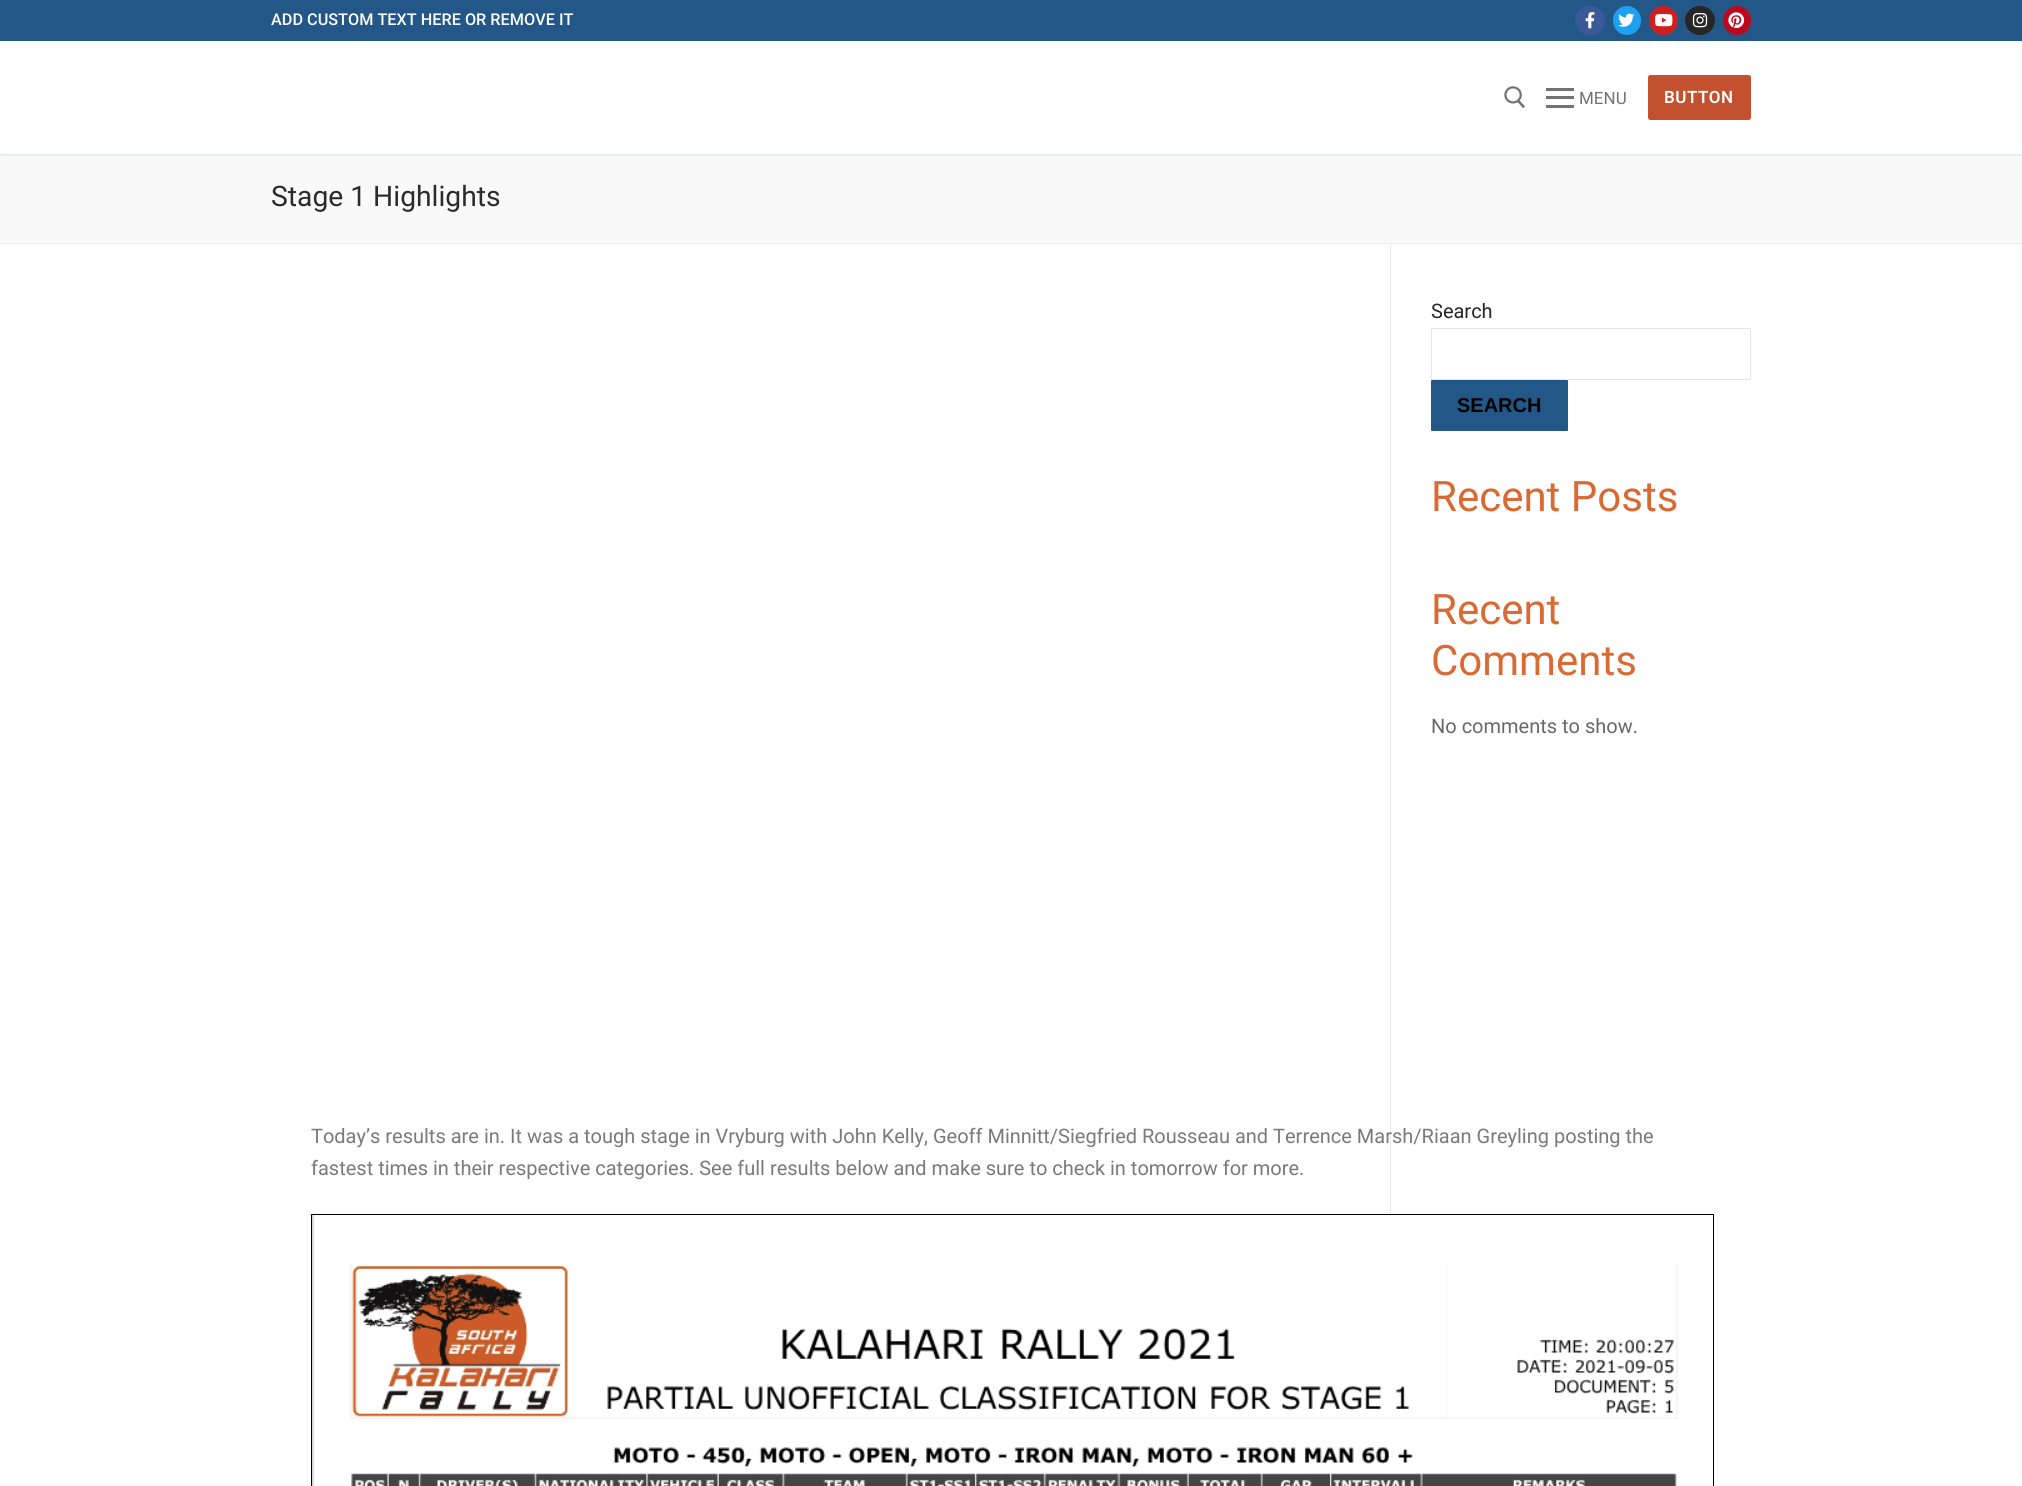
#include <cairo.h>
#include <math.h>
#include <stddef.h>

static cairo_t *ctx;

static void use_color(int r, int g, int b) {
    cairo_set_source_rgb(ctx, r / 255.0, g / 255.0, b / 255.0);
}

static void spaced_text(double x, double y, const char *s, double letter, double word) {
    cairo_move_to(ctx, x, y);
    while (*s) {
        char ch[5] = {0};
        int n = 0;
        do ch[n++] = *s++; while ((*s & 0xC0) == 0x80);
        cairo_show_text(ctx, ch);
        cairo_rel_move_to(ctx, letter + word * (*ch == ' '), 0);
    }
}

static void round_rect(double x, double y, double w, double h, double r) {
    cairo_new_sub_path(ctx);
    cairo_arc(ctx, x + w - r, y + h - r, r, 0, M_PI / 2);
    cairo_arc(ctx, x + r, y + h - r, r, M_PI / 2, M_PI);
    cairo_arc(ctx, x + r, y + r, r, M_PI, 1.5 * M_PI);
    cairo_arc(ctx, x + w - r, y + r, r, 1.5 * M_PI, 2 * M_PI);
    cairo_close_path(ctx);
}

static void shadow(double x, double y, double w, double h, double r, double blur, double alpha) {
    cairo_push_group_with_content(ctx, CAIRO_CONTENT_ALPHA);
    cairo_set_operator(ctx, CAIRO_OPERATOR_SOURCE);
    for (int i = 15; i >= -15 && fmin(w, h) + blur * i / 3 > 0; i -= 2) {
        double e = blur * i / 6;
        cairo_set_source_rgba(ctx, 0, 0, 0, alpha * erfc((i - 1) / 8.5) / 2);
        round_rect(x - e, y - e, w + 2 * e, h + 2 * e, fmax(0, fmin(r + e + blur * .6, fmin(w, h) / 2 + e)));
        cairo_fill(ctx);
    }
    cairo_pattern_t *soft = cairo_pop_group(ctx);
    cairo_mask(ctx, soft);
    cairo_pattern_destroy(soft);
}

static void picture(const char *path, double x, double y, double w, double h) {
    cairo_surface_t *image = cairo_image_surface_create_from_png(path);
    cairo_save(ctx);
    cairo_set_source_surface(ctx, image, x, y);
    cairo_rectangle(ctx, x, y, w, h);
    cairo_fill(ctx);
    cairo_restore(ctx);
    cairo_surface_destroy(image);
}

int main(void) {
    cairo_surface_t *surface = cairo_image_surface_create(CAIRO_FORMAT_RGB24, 2022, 1486);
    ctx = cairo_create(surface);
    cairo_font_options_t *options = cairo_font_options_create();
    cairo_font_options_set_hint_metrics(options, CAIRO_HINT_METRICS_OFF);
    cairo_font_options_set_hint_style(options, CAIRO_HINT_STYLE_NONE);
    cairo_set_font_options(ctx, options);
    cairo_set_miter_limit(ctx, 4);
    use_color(255, 255, 255);
    cairo_paint(ctx);
    use_color(35, 87, 135);
    cairo_rectangle(ctx, 0, 0, 2022, 41);
    cairo_fill(ctx);
    cairo_select_font_face(ctx, "Roboto Medium", CAIRO_FONT_SLANT_NORMAL, CAIRO_FONT_WEIGHT_NORMAL);
    cairo_set_font_size(ctx, 16.25);
    use_color(253, 253, 254);
    cairo_move_to(ctx, 271, 25);
    cairo_show_text(ctx, "ADD CUSTOM TEXT HERE OR REMOVE IT");
    use_color(59, 89, 152);
    round_rect(1575, 6, 30, 29, 14.5);
    cairo_fill(ctx);
    picture("img1.png", 1585, 12, 10, 17);
    use_color(29, 161, 242);
    round_rect(1613, 6, 28, 29, 14);
    cairo_fill(ctx);
    picture("img2.png", 1618, 13, 17, 14);
    use_color(205, 32, 31);
    cairo_arc(ctx, 1663.5, 20.5, 14.5, 0, 2 * M_PI);
    cairo_fill(ctx);
    picture("img3.png", 1655, 14, 18, 13);
    use_color(38, 38, 38);
    round_rect(1685, 6, 30, 29, 14.5);
    cairo_fill(ctx);
    picture("img4.png", 1692, 13, 16, 15);
    use_color(189, 8, 28);
    round_rect(1723, 6, 28, 29, 14);
    cairo_fill(ctx);
    picture("img5.png", 1728, 12, 17, 16);
    use_color(249, 249, 249);
    cairo_rectangle(ctx, 0, 154, 2022, 89);
    cairo_fill(ctx);
    use_color(225, 229, 234);
    shadow(0, 43, 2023, 112, 0, 1, 1);
    use_color(255, 255, 255);
    cairo_rectangle(ctx, 0, 42, 2022, 112);
    cairo_fill(ctx);
    picture("img6.png", 1504, 86, 21, 23);
    use_color(115, 115, 115);
    cairo_rectangle(ctx, 1546, 96, 28, 3);
    cairo_fill(ctx);
    cairo_rectangle(ctx, 1546, 88, 28, 3);
    cairo_fill(ctx);
    cairo_rectangle(ctx, 1546, 105, 28, 3);
    cairo_fill(ctx);
    cairo_select_font_face(ctx, "Roboto", CAIRO_FONT_SLANT_NORMAL, CAIRO_FONT_WEIGHT_NORMAL);
    cairo_set_font_size(ctx, 17);
    cairo_move_to(ctx, 1579, 104);
    cairo_show_text(ctx, "MENU");
    use_color(195, 81, 47);
    round_rect(1648, 75, 103, 45, 2.5);
    cairo_fill(ctx);
    cairo_select_font_face(ctx, "Roboto SemiBold", CAIRO_FONT_SLANT_NORMAL, CAIRO_FONT_WEIGHT_NORMAL);
    use_color(253, 253, 254);
    spaced_text(1664, 103, "BUTTON", 0.5, 0);
    use_color(234, 236, 238);
    cairo_rectangle(ctx, 0, 243, 2022, 1);
    cairo_fill(ctx);
    cairo_select_font_face(ctx, "Roboto", CAIRO_FONT_SLANT_NORMAL, CAIRO_FONT_WEIGHT_NORMAL);
    cairo_set_font_size(ctx, 28.25);
    use_color(43, 43, 43);
    cairo_move_to(ctx, 271, 206);
    cairo_show_text(ctx, "Stage 1 Highlights");
    cairo_set_font_size(ctx, 20);
    use_color(37, 37, 37);
    cairo_move_to(ctx, 1431, 318);
    cairo_show_text(ctx, "Search");
    round_rect(1431.5, 328.5, 319, 51, 0.5);
    use_color(229, 229, 229);
    cairo_set_line_width(ctx, 1);
    cairo_stroke(ctx);
    use_color(35, 87, 135);
    round_rect(1431, 380, 137, 51, 1);
    cairo_fill(ctx);
    cairo_select_font_face(ctx, "Liberation Sans", CAIRO_FONT_SLANT_NORMAL, CAIRO_FONT_WEIGHT_BOLD);
    use_color(0, 0, 0);
    cairo_move_to(ctx, 1457, 412);
    cairo_show_text(ctx, "SEARCH");
    cairo_select_font_face(ctx, "Roboto", CAIRO_FONT_SLANT_NORMAL, CAIRO_FONT_WEIGHT_NORMAL);
    cairo_set_font_size(ctx, 42);
    use_color(217, 106, 51);
    cairo_move_to(ctx, 1431, 511);
    cairo_show_text(ctx, "Recent Posts");
    cairo_move_to(ctx, 1431, 624);
    cairo_show_text(ctx, "Recent");
    cairo_move_to(ctx, 1431, 675);
    cairo_show_text(ctx, "Comments");
    cairo_set_font_size(ctx, 20);
    use_color(104, 104, 104);
    cairo_move_to(ctx, 1431, 733);
    cairo_show_text(ctx, "No comments to show.");
    use_color(234, 236, 238);
    cairo_rectangle(ctx, 1390, 244, 1, 970);
    cairo_fill(ctx);
    use_color(122, 122, 122);
    cairo_move_to(ctx, 311, 1143);
    cairo_show_text(ctx, "Today’s results are in. It was a tough stage in Vryburg with John Kelly, Geoff Minnitt/Siegfried Rousseau and Terrence Marsh/Riaan Greyling posting the");
    cairo_move_to(ctx, 311, 1175);
    cairo_show_text(ctx, "fastest times in their respective categories. See full results below and make sure to check in tomorrow for more.");
    use_color(211, 211, 211);
    cairo_rectangle(ctx, 312, 1215, 2, 271);
    cairo_fill(ctx);
    cairo_rectangle(ctx, 311.5, 1214.5, 1402, 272);
    use_color(0, 0, 0);
    cairo_stroke(ctx);
    picture("img7.png", 313, 1215, 1365, 271);
    cairo_surface_write_to_png(surface, "result.png");
    cairo_font_options_destroy(options);
    cairo_destroy(ctx);
    cairo_surface_destroy(surface);
    return 0;
}
